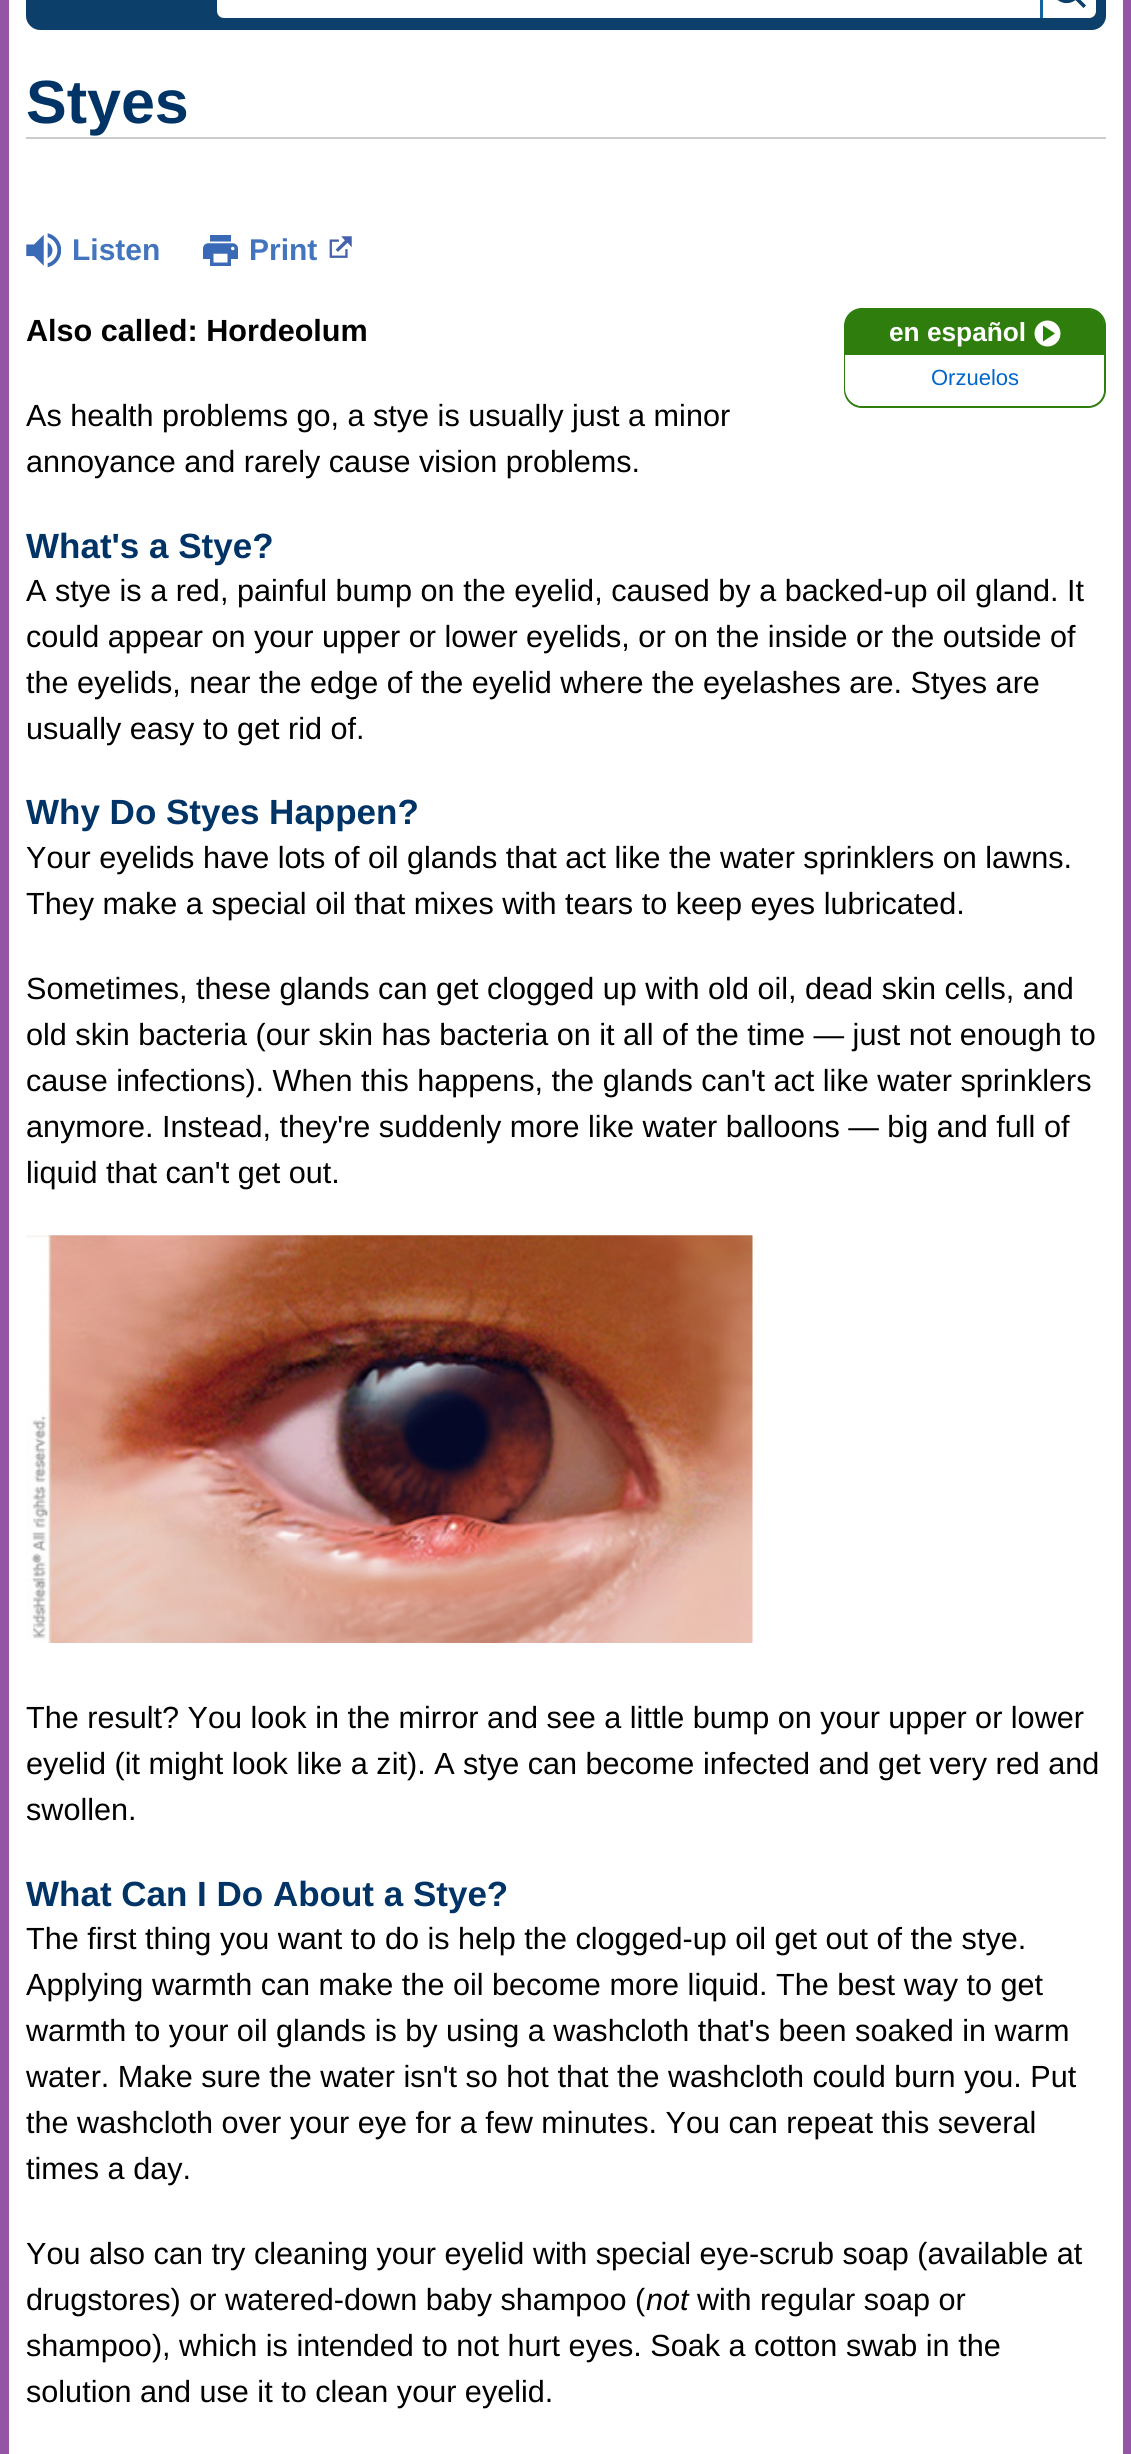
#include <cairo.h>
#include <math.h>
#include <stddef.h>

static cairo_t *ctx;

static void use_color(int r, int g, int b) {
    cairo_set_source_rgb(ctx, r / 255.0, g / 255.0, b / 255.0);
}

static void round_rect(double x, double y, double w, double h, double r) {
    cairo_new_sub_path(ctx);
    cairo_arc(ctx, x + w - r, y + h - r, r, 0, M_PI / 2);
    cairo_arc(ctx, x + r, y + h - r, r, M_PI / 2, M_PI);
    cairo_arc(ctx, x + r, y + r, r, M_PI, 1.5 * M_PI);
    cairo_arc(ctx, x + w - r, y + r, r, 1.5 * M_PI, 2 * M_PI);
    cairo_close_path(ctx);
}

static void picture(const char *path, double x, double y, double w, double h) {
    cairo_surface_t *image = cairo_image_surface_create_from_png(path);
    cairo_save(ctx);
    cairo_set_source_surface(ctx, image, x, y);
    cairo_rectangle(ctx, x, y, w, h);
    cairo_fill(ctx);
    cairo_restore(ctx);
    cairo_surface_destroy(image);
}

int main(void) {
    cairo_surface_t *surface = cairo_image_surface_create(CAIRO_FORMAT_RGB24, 1131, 2454);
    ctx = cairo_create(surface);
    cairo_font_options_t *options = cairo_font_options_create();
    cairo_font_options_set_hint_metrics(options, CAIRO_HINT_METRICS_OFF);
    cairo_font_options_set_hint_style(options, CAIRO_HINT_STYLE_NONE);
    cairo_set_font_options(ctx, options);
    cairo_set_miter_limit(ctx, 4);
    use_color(255, 255, 255);
    cairo_paint(ctx);
    cairo_rectangle(ctx, 4.5, -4.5, 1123, 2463);
    use_color(149, 85, 165);
    cairo_set_line_width(ctx, 9);
    cairo_stroke(ctx);
    use_color(13, 63, 107);
    cairo_new_path(ctx);
    cairo_move_to(ctx, 40, -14);
    cairo_line_to(ctx, 1106, -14);
    cairo_line_to(ctx, 1106, 16);
    cairo_curve_to(ctx, 1106, 23.5, 1099.5, 30, 1092, 30);
    cairo_line_to(ctx, 40, 30);
    cairo_curve_to(ctx, 32.5, 30, 26, 23.5, 26, 16);
    cairo_line_to(ctx, 26, 0);
    cairo_curve_to(ctx, 26, -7.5, 32.5, -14, 40, -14);
    cairo_close_path(ctx);
    cairo_fill(ctx);
    use_color(255, 255, 255);
    cairo_new_path(ctx);
    cairo_move_to(ctx, 224, -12.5);
    cairo_line_to(ctx, 1034.5, -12.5);
    cairo_line_to(ctx, 1034.5, 12.5);
    cairo_line_to(ctx, 224, 12.5);
    cairo_curve_to(ctx, 223, 12.5, 222.5, 12, 222.5, 11);
    cairo_line_to(ctx, 222.5, -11);
    cairo_curve_to(ctx, 222.5, -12, 223, -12.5, 224, -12.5);
    cairo_close_path(ctx);
    cairo_fill_preserve(ctx);
    cairo_set_line_width(ctx, 11);
    cairo_stroke(ctx);
    use_color(21, 100, 162);
    cairo_rectangle(ctx, 1040, 0, 3, 18);
    cairo_fill(ctx);
    use_color(255, 255, 255);
    cairo_new_path(ctx);
    cairo_move_to(ctx, 1043, -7);
    cairo_line_to(ctx, 1096, -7);
    cairo_line_to(ctx, 1096, 11);
    cairo_curve_to(ctx, 1096, 15, 1093, 18, 1089, 18);
    cairo_line_to(ctx, 1043, 18);
    cairo_close_path(ctx);
    cairo_fill(ctx);
    picture("img1.png", 1057, 0, 29, 8);
    use_color(204, 204, 204);
    cairo_rectangle(ctx, 26, 137, 1080, 2);
    cairo_fill(ctx);
    cairo_select_font_face(ctx, "Liberation Sans", CAIRO_FONT_SLANT_NORMAL, CAIRO_FONT_WEIGHT_BOLD);
    cairo_set_font_size(ctx, 61);
    use_color(0, 51, 102);
    cairo_move_to(ctx, 26, 123);
    cairo_show_text(ctx, "Styes");
    picture("img2.png", 26, 233, 35, 35);
    cairo_set_font_size(ctx, 30);
    use_color(66, 117, 189);
    cairo_move_to(ctx, 72, 260);
    cairo_show_text(ctx, "Listen");
    picture("img3.png", 203, 235, 35, 31);
    cairo_move_to(ctx, 249, 260);
    cairo_show_text(ctx, "Print");
    picture("img4.png", 329, 236, 23, 22);
    cairo_set_font_size(ctx, 30.6);
    use_color(0, 0, 0);
    cairo_move_to(ctx, 26, 341);
    cairo_show_text(ctx, "Also called: Hordeolum");
    cairo_select_font_face(ctx, "Liberation Sans", CAIRO_FONT_SLANT_NORMAL, CAIRO_FONT_WEIGHT_NORMAL);
    cairo_move_to(ctx, 26, 426);
    cairo_show_text(ctx, "As health problems go, a stye is usually just a minor");
    cairo_move_to(ctx, 26, 472);
    cairo_show_text(ctx, "annoyance and rarely cause vision problems.");
    cairo_select_font_face(ctx, "Liberation Sans", CAIRO_FONT_SLANT_NORMAL, CAIRO_FONT_WEIGHT_BOLD);
    cairo_set_font_size(ctx, 35);
    use_color(0, 51, 102);
    cairo_move_to(ctx, 26, 558);
    cairo_show_text(ctx, "What's a Stye?");
    cairo_select_font_face(ctx, "Liberation Sans", CAIRO_FONT_SLANT_NORMAL, CAIRO_FONT_WEIGHT_NORMAL);
    cairo_set_font_size(ctx, 30.6);
    use_color(0, 0, 0);
    cairo_move_to(ctx, 26, 601);
    cairo_show_text(ctx, "A stye is a red, painful bump on the eyelid, caused by a backed-up oil gland. It");
    cairo_move_to(ctx, 26, 647);
    cairo_show_text(ctx, "could appear on your upper or lower eyelids, or on the inside or the outside of");
    cairo_move_to(ctx, 26, 693);
    cairo_show_text(ctx, "the eyelids, near the edge of the eyelid where the eyelashes are. Styes are");
    cairo_move_to(ctx, 26, 739);
    cairo_show_text(ctx, "usually easy to get rid of.");
    cairo_select_font_face(ctx, "Liberation Sans", CAIRO_FONT_SLANT_NORMAL, CAIRO_FONT_WEIGHT_BOLD);
    cairo_set_font_size(ctx, 35);
    use_color(0, 51, 102);
    cairo_move_to(ctx, 26, 824);
    cairo_show_text(ctx, "Why Do Styes Happen?");
    cairo_select_font_face(ctx, "Liberation Sans", CAIRO_FONT_SLANT_NORMAL, CAIRO_FONT_WEIGHT_NORMAL);
    cairo_set_font_size(ctx, 30.6);
    use_color(0, 0, 0);
    cairo_move_to(ctx, 26, 868);
    cairo_show_text(ctx, "Your eyelids have lots of oil glands that act like the water sprinklers on lawns.");
    cairo_move_to(ctx, 26, 914);
    cairo_show_text(ctx, "They make a special oil that mixes with tears to keep eyes lubricated.");
    cairo_move_to(ctx, 26, 999);
    cairo_show_text(ctx, "Sometimes, these glands can get clogged up with old oil, dead skin cells, and");
    cairo_move_to(ctx, 26, 1045);
    cairo_show_text(ctx, "old skin bacteria (our skin has bacteria on it all of the time — just not enough to");
    cairo_move_to(ctx, 26, 1091);
    cairo_show_text(ctx, "cause infections). When this happens, the glands can't act like water sprinklers");
    cairo_move_to(ctx, 26, 1137);
    cairo_show_text(ctx, "anymore. Instead, they're suddenly more like water balloons — big and full of");
    cairo_move_to(ctx, 26, 1183);
    cairo_show_text(ctx, "liquid that can't get out.");
    round_rect(845, 309, 260, 98, 17);
    use_color(46, 125, 13);
    cairo_set_line_width(ctx, 2);
    cairo_stroke(ctx);
    cairo_new_path(ctx);
    cairo_move_to(ctx, 859, 310);
    cairo_line_to(ctx, 1090, 310);
    cairo_curve_to(ctx, 1097.5, 310, 1104, 316.5, 1104, 324);
    cairo_line_to(ctx, 1104, 355);
    cairo_line_to(ctx, 845, 355);
    cairo_line_to(ctx, 845, 324);
    cairo_curve_to(ctx, 845, 316.5, 851.5, 310, 859, 310);
    cairo_close_path(ctx);
    cairo_fill(ctx);
    cairo_select_font_face(ctx, "Liberation Sans", CAIRO_FONT_SLANT_NORMAL, CAIRO_FONT_WEIGHT_BOLD);
    cairo_set_font_size(ctx, 26.25);
    use_color(255, 255, 255);
    cairo_move_to(ctx, 889, 341);
    cairo_show_text(ctx, "en español");
    cairo_new_path(ctx);
    cairo_arc(ctx, 1047.5, 333.5, 13, 0, 2 * M_PI);
    cairo_fill(ctx);
    use_color(37, 131, 0);
    cairo_set_fill_rule(ctx, CAIRO_FILL_RULE_EVEN_ODD);
    cairo_new_path(ctx);
    cairo_move_to(ctx, 1043, 325.5);
    cairo_line_to(ctx, 1043, 341.5);
    cairo_line_to(ctx, 1055, 333.5);
    cairo_close_path(ctx);
    cairo_fill(ctx);
    use_color(255, 255, 255);
    cairo_new_path(ctx);
    cairo_move_to(ctx, 845, 355);
    cairo_line_to(ctx, 1104, 355);
    cairo_line_to(ctx, 1104, 388);
    cairo_curve_to(ctx, 1104, 398, 1096, 406, 1086, 406);
    cairo_line_to(ctx, 863, 406);
    cairo_curve_to(ctx, 853, 406, 845, 398, 845, 388);
    cairo_close_path(ctx);
    cairo_fill(ctx);
    cairo_select_font_face(ctx, "Liberation Sans", CAIRO_FONT_SLANT_NORMAL, CAIRO_FONT_WEIGHT_NORMAL);
    cairo_set_font_size(ctx, 22);
    use_color(0, 102, 204);
    cairo_move_to(ctx, 931, 385);
    cairo_show_text(ctx, "Orzuelos");
    picture("img5.png", 26, 1235, 727, 408);
    cairo_set_font_size(ctx, 30.6);
    use_color(0, 0, 0);
    cairo_move_to(ctx, 26, 1728);
    cairo_show_text(ctx, "The result? You look in the mirror and see a little bump on your upper or lower");
    cairo_move_to(ctx, 26, 1774);
    cairo_show_text(ctx, "eyelid (it might look like a zit). A stye can become infected and get very red and");
    cairo_move_to(ctx, 26, 1820);
    cairo_show_text(ctx, "swollen.");
    cairo_select_font_face(ctx, "Liberation Sans", CAIRO_FONT_SLANT_NORMAL, CAIRO_FONT_WEIGHT_BOLD);
    cairo_set_font_size(ctx, 35);
    use_color(0, 51, 102);
    cairo_move_to(ctx, 26, 1906);
    cairo_show_text(ctx, "What Can I Do About a Stye?");
    cairo_select_font_face(ctx, "Liberation Sans", CAIRO_FONT_SLANT_NORMAL, CAIRO_FONT_WEIGHT_NORMAL);
    cairo_set_font_size(ctx, 30.6);
    use_color(0, 0, 0);
    cairo_move_to(ctx, 26, 1949);
    cairo_show_text(ctx, "The first thing you want to do is help the clogged-up oil get out of the stye.");
    cairo_move_to(ctx, 26, 1995);
    cairo_show_text(ctx, "Applying warmth can make the oil become more liquid. The best way to get");
    cairo_move_to(ctx, 26, 2041);
    cairo_show_text(ctx, "warmth to your oil glands is by using a washcloth that's been soaked in warm");
    cairo_move_to(ctx, 26, 2087);
    cairo_show_text(ctx, "water. Make sure the water isn't so hot that the washcloth could burn you. Put");
    cairo_move_to(ctx, 26, 2133);
    cairo_show_text(ctx, "the washcloth over your eye for a few minutes. You can repeat this several");
    cairo_move_to(ctx, 26, 2179);
    cairo_show_text(ctx, "times a day.");
    cairo_move_to(ctx, 26, 2264);
    cairo_show_text(ctx, "You also can try cleaning your eyelid with special eye-scrub soap (available at");
    cairo_move_to(ctx, 26, 2310);
    cairo_show_text(ctx, "drugstores) or watered-down baby shampoo (");
    cairo_select_font_face(ctx, "Liberation Sans", CAIRO_FONT_SLANT_ITALIC, CAIRO_FONT_WEIGHT_NORMAL);
    cairo_move_to(ctx, 646, 2310);
    cairo_show_text(ctx, "not");
    cairo_select_font_face(ctx, "Liberation Sans", CAIRO_FONT_SLANT_NORMAL, CAIRO_FONT_WEIGHT_NORMAL);
    cairo_move_to(ctx, 697, 2310);
    cairo_show_text(ctx, "with regular soap or");
    cairo_move_to(ctx, 26, 2356);
    cairo_show_text(ctx, "shampoo), which is intended to not hurt eyes. Soak a cotton swab in the");
    cairo_move_to(ctx, 26, 2402);
    cairo_show_text(ctx, "solution and use it to clean your eyelid.");
    cairo_surface_write_to_png(surface, "result.png");
    cairo_font_options_destroy(options);
    cairo_destroy(ctx);
    cairo_surface_destroy(surface);
    return 0;
}
